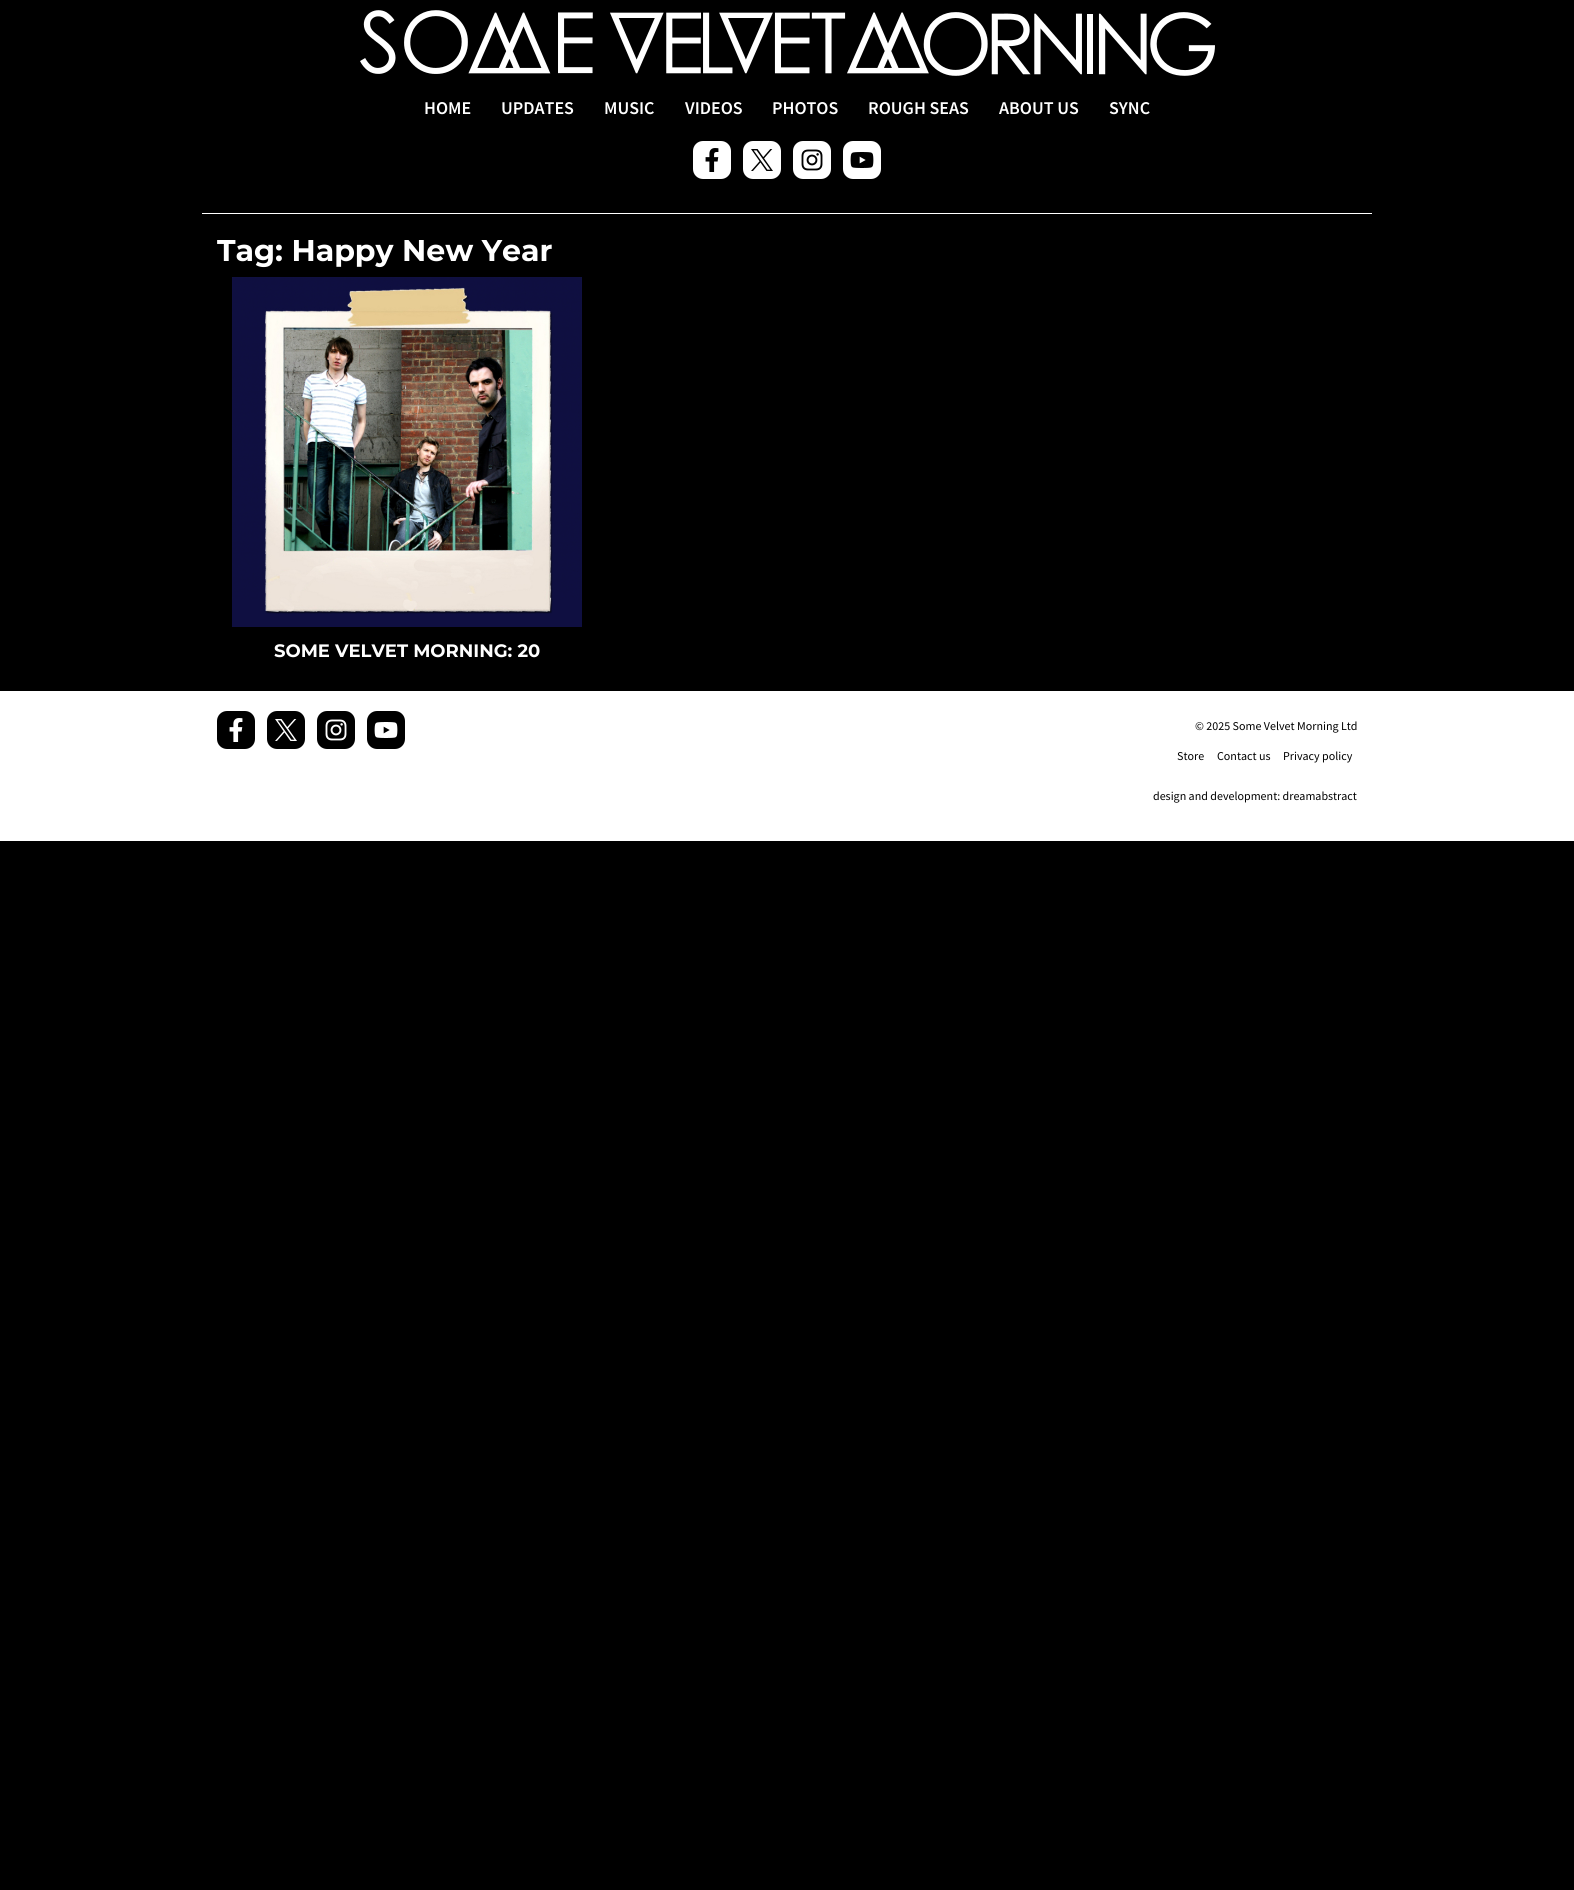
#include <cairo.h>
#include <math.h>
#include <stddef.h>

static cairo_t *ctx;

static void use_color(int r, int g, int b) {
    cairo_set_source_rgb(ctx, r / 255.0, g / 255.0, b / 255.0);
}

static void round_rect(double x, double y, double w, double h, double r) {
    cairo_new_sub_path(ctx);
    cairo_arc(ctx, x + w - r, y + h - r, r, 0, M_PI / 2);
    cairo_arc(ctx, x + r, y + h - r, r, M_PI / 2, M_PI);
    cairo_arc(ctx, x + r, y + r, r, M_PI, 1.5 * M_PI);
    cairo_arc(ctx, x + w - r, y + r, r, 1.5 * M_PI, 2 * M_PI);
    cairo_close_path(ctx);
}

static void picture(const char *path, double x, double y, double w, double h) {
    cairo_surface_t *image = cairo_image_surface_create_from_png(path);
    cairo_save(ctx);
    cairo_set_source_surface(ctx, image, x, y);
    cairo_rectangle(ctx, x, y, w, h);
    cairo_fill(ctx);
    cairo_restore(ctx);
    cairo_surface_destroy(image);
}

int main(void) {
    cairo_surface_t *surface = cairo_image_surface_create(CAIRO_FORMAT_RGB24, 1574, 1890);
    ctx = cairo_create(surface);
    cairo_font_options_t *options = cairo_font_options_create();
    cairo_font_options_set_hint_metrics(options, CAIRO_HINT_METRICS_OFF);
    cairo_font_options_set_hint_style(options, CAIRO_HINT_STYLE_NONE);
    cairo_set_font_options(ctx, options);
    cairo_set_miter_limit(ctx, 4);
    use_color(0, 0, 0);
    cairo_paint(ctx);
    picture("img1.png", 360, 10, 855, 66);
    cairo_select_font_face(ctx, "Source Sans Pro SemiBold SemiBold", CAIRO_FONT_SLANT_NORMAL, CAIRO_FONT_WEIGHT_NORMAL);
    cairo_set_font_size(ctx, 18);
    use_color(255, 255, 255);
    cairo_move_to(ctx, 424, 114);
    cairo_show_text(ctx, "HOME");
    cairo_move_to(ctx, 501, 114);
    cairo_show_text(ctx, "UPDATES");
    cairo_move_to(ctx, 604, 114);
    cairo_show_text(ctx, "MUSIC");
    cairo_move_to(ctx, 685, 114);
    cairo_show_text(ctx, "VIDEOS");
    cairo_move_to(ctx, 772, 114);
    cairo_show_text(ctx, "PHOTOS");
    cairo_move_to(ctx, 868, 114);
    cairo_show_text(ctx, "ROUGH SEAS");
    cairo_move_to(ctx, 999, 114);
    cairo_show_text(ctx, "ABOUT US");
    cairo_move_to(ctx, 1109, 114);
    cairo_show_text(ctx, "SYNC");
    round_rect(693, 141, 38, 38, 10);
    cairo_fill(ctx);
    picture("img2.png", 705, 148, 14, 24);
    round_rect(743, 141, 38, 38, 10);
    cairo_fill(ctx);
    picture("img3.png", 751, 149, 22, 22);
    round_rect(793, 141, 38, 38, 10);
    cairo_fill(ctx);
    picture("img4.png", 801, 149, 22, 22);
    round_rect(843, 141, 38, 38, 10);
    cairo_fill(ctx);
    picture("img5.png", 850, 152, 24, 16);
    cairo_rectangle(ctx, 202, 213, 1170, 1);
    cairo_fill(ctx);
    cairo_select_font_face(ctx, "Montserrat", CAIRO_FONT_SLANT_NORMAL, CAIRO_FONT_WEIGHT_BOLD);
    cairo_set_font_size(ctx, 30);
    cairo_move_to(ctx, 217, 261);
    cairo_show_text(ctx, "Tag: Happy New Year");
    picture("img6.png", 232, 277, 350, 350);
    cairo_set_font_size(ctx, 18);
    cairo_move_to(ctx, 274, 657);
    cairo_show_text(ctx, "SOME VELVET MORNING: 20");
    cairo_rectangle(ctx, 0, 691, 1574, 150);
    cairo_fill(ctx);
    use_color(0, 0, 0);
    round_rect(217, 711, 38, 38, 10);
    cairo_fill(ctx);
    picture("img7.png", 229, 718, 14, 24);
    round_rect(267, 711, 38, 38, 10);
    cairo_fill(ctx);
    picture("img8.png", 275, 719, 22, 22);
    round_rect(317, 711, 38, 38, 10);
    cairo_fill(ctx);
    picture("img9.png", 325, 719, 22, 22);
    round_rect(367, 711, 38, 38, 10);
    cairo_fill(ctx);
    picture("img10.png", 374, 722, 24, 16);
    cairo_select_font_face(ctx, "Source Sans Pro", CAIRO_FONT_SLANT_NORMAL, CAIRO_FONT_WEIGHT_NORMAL);
    cairo_set_font_size(ctx, 12);
    cairo_move_to(ctx, 1195, 730);
    cairo_show_text(ctx, "© 2025 Some Velvet Morning Ltd");
    cairo_move_to(ctx, 1177, 760);
    cairo_show_text(ctx, "Store");
    cairo_move_to(ctx, 1217, 760);
    cairo_show_text(ctx, "Contact us");
    cairo_move_to(ctx, 1283, 760);
    cairo_show_text(ctx, "Privacy policy");
    cairo_move_to(ctx, 1153, 800);
    cairo_show_text(ctx, "design and development: dreamabstract");
    cairo_surface_write_to_png(surface, "result.png");
    cairo_font_options_destroy(options);
    cairo_destroy(ctx);
    cairo_surface_destroy(surface);
    return 0;
}
